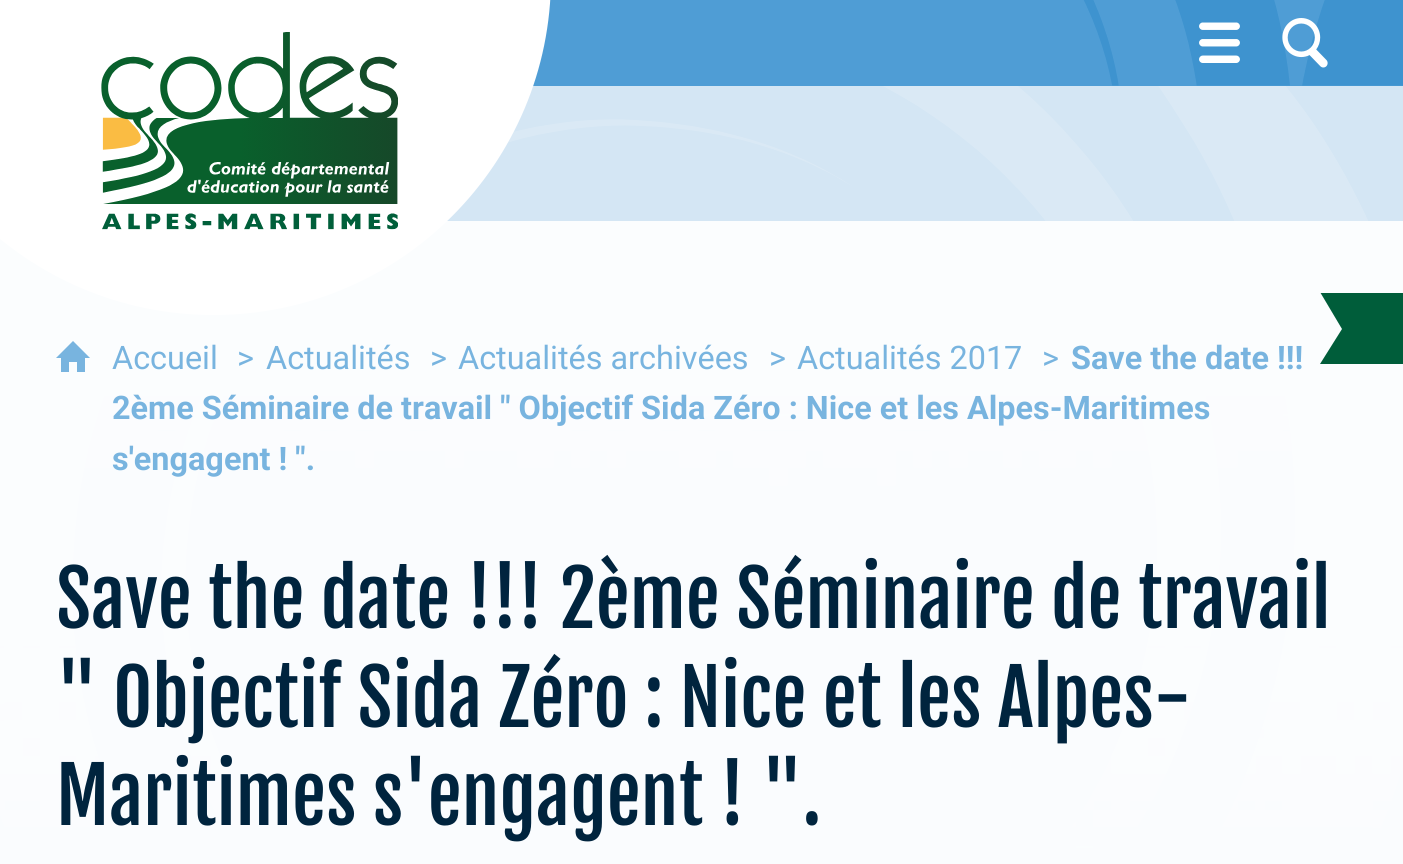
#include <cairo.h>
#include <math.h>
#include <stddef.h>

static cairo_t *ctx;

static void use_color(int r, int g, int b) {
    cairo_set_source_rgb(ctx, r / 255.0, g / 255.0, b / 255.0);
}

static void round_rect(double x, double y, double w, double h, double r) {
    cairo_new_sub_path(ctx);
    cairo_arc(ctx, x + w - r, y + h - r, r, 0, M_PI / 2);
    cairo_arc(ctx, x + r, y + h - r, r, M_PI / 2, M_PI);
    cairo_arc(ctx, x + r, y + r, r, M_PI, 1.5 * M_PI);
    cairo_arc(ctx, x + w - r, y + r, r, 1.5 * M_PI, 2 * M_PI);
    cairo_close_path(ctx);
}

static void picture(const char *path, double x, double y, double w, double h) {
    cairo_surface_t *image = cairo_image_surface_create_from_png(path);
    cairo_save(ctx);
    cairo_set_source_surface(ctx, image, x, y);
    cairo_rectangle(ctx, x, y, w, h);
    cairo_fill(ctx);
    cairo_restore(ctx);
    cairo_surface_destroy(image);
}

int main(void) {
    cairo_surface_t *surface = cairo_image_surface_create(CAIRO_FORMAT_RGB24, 1403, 864);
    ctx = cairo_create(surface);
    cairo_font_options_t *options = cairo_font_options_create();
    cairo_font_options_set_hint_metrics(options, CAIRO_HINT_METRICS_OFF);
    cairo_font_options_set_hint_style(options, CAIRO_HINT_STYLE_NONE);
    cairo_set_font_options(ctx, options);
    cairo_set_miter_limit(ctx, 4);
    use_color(255, 255, 255);
    cairo_paint(ctx);
    picture("img1.png", 0, 86, 1403, 778);
    use_color(79, 157, 213);
    cairo_rectangle(ctx, 533, 0, 870, 86);
    cairo_fill(ctx);
    cairo_set_source_rgba(ctx, 1, 1, 1, 0.9);
    cairo_rectangle(ctx, 0, 221, 1403, 643);
    cairo_fill(ctx);
    use_color(255, 255, 255);
    round_rect(-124, -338, 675, 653, 337.5);
    cairo_fill(ctx);
    picture("img2.png", 101, 32, 297, 198);
    picture("img3.png", 1083, 0, 320, 86);
    picture("img4.png", 1199, 22, 41, 41);
    picture("img5.png", 1282, 18, 46, 50);
    cairo_save(ctx);
    cairo_rectangle(ctx, 1312, 293, 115, 72);
    cairo_clip(ctx);
    use_color(0, 93, 58);
    cairo_new_path(ctx);
    cairo_move_to(ctx, 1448, 364);
    cairo_line_to(ctx, 1320, 364);
    cairo_line_to(ctx, 1342, 329);
    cairo_line_to(ctx, 1320, 292);
    cairo_line_to(ctx, 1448, 292);
    cairo_close_path(ctx);
    cairo_fill(ctx);
    cairo_restore(ctx);
    use_color(120, 180, 223);
    cairo_new_path(ctx);
    cairo_move_to(ctx, 90, 358);
    cairo_line_to(ctx, 73, 341);
    cairo_line_to(ctx, 56, 358);
    cairo_line_to(ctx, 61, 358);
    cairo_line_to(ctx, 61, 372);
    cairo_line_to(ctx, 69, 372);
    cairo_line_to(ctx, 69, 362);
    cairo_line_to(ctx, 77, 362);
    cairo_line_to(ctx, 77, 372);
    cairo_line_to(ctx, 85, 372);
    cairo_line_to(ctx, 85, 358);
    cairo_close_path(ctx);
    cairo_fill(ctx);
    cairo_select_font_face(ctx, "Roboto", CAIRO_FONT_SLANT_NORMAL, CAIRO_FONT_WEIGHT_NORMAL);
    cairo_set_font_size(ctx, 32.4);
    cairo_move_to(ctx, 112, 369);
    cairo_show_text(ctx, "Accueil");
    cairo_move_to(ctx, 237, 369);
    cairo_show_text(ctx, ">");
    cairo_move_to(ctx, 266, 369);
    cairo_show_text(ctx, "Actualités");
    cairo_move_to(ctx, 430, 369);
    cairo_show_text(ctx, ">");
    cairo_move_to(ctx, 458, 369);
    cairo_show_text(ctx, "Actualités archivées");
    cairo_move_to(ctx, 769, 369);
    cairo_show_text(ctx, ">");
    cairo_move_to(ctx, 797, 369);
    cairo_show_text(ctx, "Actualités 2017");
    cairo_move_to(ctx, 1042, 369);
    cairo_show_text(ctx, ">");
    cairo_select_font_face(ctx, "Roboto", CAIRO_FONT_SLANT_NORMAL, CAIRO_FONT_WEIGHT_BOLD);
    cairo_move_to(ctx, 1071, 369);
    cairo_show_text(ctx, "Save the date !!!");
    cairo_move_to(ctx, 112, 419);
    cairo_show_text(ctx, "2ème Séminaire de travail \" Objectif Sida Zéro : Nice et les Alpes-Maritimes");
    cairo_move_to(ctx, 112, 470);
    cairo_show_text(ctx, "s'engagent ! \".");
    cairo_select_font_face(ctx, "Fjalla One", CAIRO_FONT_SLANT_NORMAL, CAIRO_FONT_WEIGHT_NORMAL);
    cairo_set_font_size(ctx, 75.6);
    use_color(0, 36, 62);
    cairo_move_to(ctx, 56, 628);
    cairo_show_text(ctx, "Save the date !!! 2ème Séminaire de travail");
    cairo_move_to(ctx, 56, 727);
    cairo_show_text(ctx, "\" Objectif Sida Zéro : Nice et les Alpes-");
    cairo_move_to(ctx, 56, 825);
    cairo_show_text(ctx, "Maritimes s'engagent ! \".");
    cairo_surface_write_to_png(surface, "result.png");
    cairo_font_options_destroy(options);
    cairo_destroy(ctx);
    cairo_surface_destroy(surface);
    return 0;
}
